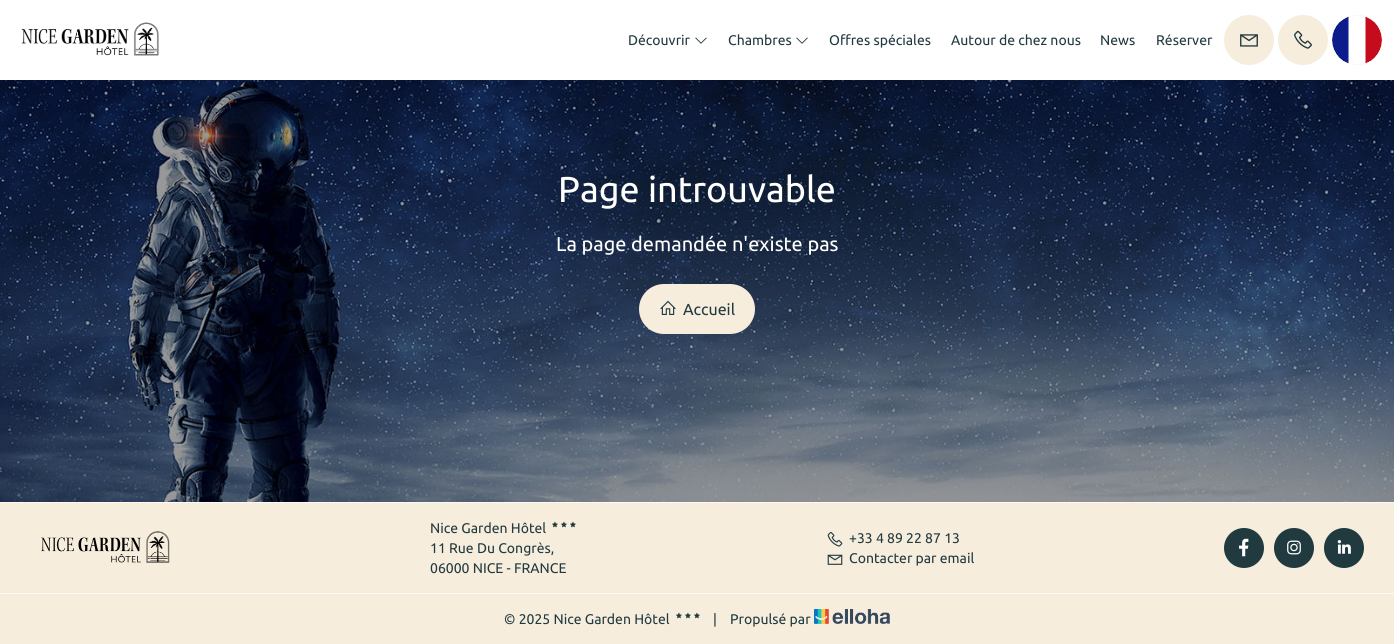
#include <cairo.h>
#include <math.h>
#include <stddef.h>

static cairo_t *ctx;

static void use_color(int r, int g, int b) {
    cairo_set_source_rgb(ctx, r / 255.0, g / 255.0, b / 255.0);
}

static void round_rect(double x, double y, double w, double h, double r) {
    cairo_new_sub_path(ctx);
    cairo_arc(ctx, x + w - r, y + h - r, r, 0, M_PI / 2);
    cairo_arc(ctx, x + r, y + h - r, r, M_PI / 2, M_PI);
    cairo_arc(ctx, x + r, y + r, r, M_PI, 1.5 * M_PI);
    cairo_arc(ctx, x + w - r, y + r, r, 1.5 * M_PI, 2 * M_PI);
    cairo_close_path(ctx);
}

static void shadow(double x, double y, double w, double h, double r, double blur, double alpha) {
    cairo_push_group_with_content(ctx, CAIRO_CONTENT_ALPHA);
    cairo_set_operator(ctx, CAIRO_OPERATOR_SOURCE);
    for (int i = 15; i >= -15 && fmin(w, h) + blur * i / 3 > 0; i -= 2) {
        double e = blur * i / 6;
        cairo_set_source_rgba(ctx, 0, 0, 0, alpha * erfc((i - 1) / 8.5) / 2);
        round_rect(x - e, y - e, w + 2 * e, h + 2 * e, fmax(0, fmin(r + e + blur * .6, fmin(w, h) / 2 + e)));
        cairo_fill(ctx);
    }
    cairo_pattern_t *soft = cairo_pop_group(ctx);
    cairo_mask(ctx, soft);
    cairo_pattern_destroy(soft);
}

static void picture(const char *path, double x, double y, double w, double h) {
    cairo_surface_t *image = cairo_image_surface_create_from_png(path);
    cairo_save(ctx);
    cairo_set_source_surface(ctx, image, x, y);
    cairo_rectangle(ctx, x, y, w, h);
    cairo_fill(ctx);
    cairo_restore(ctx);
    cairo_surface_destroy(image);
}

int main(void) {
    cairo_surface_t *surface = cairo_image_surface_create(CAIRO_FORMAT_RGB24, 1394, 644);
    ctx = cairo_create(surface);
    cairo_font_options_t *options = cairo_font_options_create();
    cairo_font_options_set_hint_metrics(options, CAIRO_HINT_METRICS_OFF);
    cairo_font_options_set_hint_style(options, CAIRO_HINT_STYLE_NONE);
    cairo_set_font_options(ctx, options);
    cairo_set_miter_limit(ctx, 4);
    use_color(255, 255, 255);
    cairo_paint(ctx);
    picture("img6.png", 0, 80, 1394, 422);
    use_color(0, 0, 0);
    shadow(4, 0, 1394, 80, 0, 7.5, 0.1);
    use_color(255, 255, 255);
    cairo_rectangle(ctx, 0, 0, 1394, 80);
    cairo_fill(ctx);
    picture("img1.png", 21, 22, 138, 34);
    cairo_select_font_face(ctx, "Ubuntu", CAIRO_FONT_SLANT_NORMAL, CAIRO_FONT_WEIGHT_NORMAL);
    cairo_set_font_size(ctx, 14);
    use_color(33, 58, 64);
    cairo_move_to(ctx, 628, 45);
    cairo_show_text(ctx, "Découvrir");
    picture("img2.png", 695, 37, 12, 7);
    cairo_move_to(ctx, 728, 45);
    cairo_show_text(ctx, "Chambres");
    picture("img2.png", 796, 37, 12, 7);
    cairo_move_to(ctx, 829, 45);
    cairo_show_text(ctx, "Offres spéciales");
    cairo_move_to(ctx, 951, 45);
    cairo_show_text(ctx, "Autour de chez nous");
    cairo_move_to(ctx, 1100, 45);
    cairo_show_text(ctx, "News");
    cairo_move_to(ctx, 1156, 45);
    cairo_show_text(ctx, "Réserver");
    use_color(247, 237, 221);
    cairo_new_path(ctx);
    cairo_arc(ctx, 1249, 40, 25, 0, 2 * M_PI);
    cairo_fill(ctx);
    picture("img3.png", 1240, 34, 18, 13);
    cairo_arc(ctx, 1303, 40, 25, 0, 2 * M_PI);
    cairo_fill(ctx);
    picture("img4.png", 1294, 30, 18, 19);
    cairo_arc(ctx, 1357, 40, 25, 0, 2 * M_PI);
    cairo_fill(ctx);
    picture("img5.png", 1332, 15, 50, 50);
    cairo_set_font_size(ctx, 36);
    use_color(255, 255, 255);
    cairo_move_to(ctx, 558, 202);
    cairo_show_text(ctx, "Page introuvable");
    cairo_set_font_size(ctx, 20);
    cairo_move_to(ctx, 556, 251);
    cairo_show_text(ctx, "La page demandée n'existe pas");
    use_color(247, 237, 221);
    round_rect(639, 284, 116, 50, 25);
    cairo_fill(ctx);
    picture("img7.png", 660, 300, 16, 15);
    cairo_set_font_size(ctx, 16);
    use_color(33, 58, 64);
    cairo_move_to(ctx, 683, 315);
    cairo_show_text(ctx, "Accueil");
    use_color(247, 237, 221);
    cairo_rectangle(ctx, 0, 503, 1394, 90);
    cairo_fill(ctx);
    use_color(253, 250, 245);
    cairo_rectangle(ctx, 0, 502, 1394, 1);
    cairo_fill(ctx);
    cairo_rectangle(ctx, 0, 593, 1394, 1);
    cairo_fill(ctx);
    picture("img8.png", 41, 531, 129, 32);
    cairo_set_font_size(ctx, 14);
    use_color(33, 58, 64);
    cairo_move_to(ctx, 430, 533);
    cairo_show_text(ctx, "Nice Garden Hôtel");
    picture("img9.png", 552, 521, 6, 7);
    picture("img9.png", 561, 521, 6, 7);
    picture("img9.png", 570, 521, 6, 7);
    cairo_move_to(ctx, 430, 553);
    cairo_show_text(ctx, "11 Rue Du Congrès,");
    cairo_move_to(ctx, 430, 573);
    cairo_show_text(ctx, "06000 NICE - FRANCE");
    picture("img10.png", 827, 532, 16, 15);
    cairo_move_to(ctx, 849, 543);
    cairo_show_text(ctx, "+33 4 89 22 87 13");
    picture("img11.png", 827, 554, 16, 11);
    cairo_move_to(ctx, 849, 563);
    cairo_show_text(ctx, "Contacter par email");
    cairo_new_path(ctx);
    cairo_arc(ctx, 1244, 548, 20, 0, 2 * M_PI);
    cairo_fill(ctx);
    picture("img12.png", 1239, 538, 10, 19);
    cairo_arc(ctx, 1294, 548, 20, 0, 2 * M_PI);
    cairo_fill(ctx);
    picture("img13.png", 1287, 540, 14, 15);
    cairo_arc(ctx, 1344, 548, 20, 0, 2 * M_PI);
    cairo_fill(ctx);
    picture("img14.png", 1337, 540, 14, 14);
    use_color(247, 237, 221);
    cairo_rectangle(ctx, 0, 594, 1394, 50);
    cairo_fill(ctx);
    use_color(33, 58, 64);
    cairo_move_to(ctx, 504, 624);
    cairo_show_text(ctx, "© 2025 Nice Garden Hôtel");
    picture("img9.png", 676, 612, 6, 7);
    picture("img9.png", 685, 612, 6, 7);
    picture("img9.png", 694, 612, 6, 7);
    cairo_move_to(ctx, 713, 624);
    cairo_show_text(ctx, "|");
    cairo_move_to(ctx, 730, 624);
    cairo_show_text(ctx, "Propulsé par");
    picture("img15.png", 814, 609, 76, 15);
    cairo_surface_write_to_png(surface, "result.png");
    cairo_font_options_destroy(options);
    cairo_destroy(ctx);
    cairo_surface_destroy(surface);
    return 0;
}
